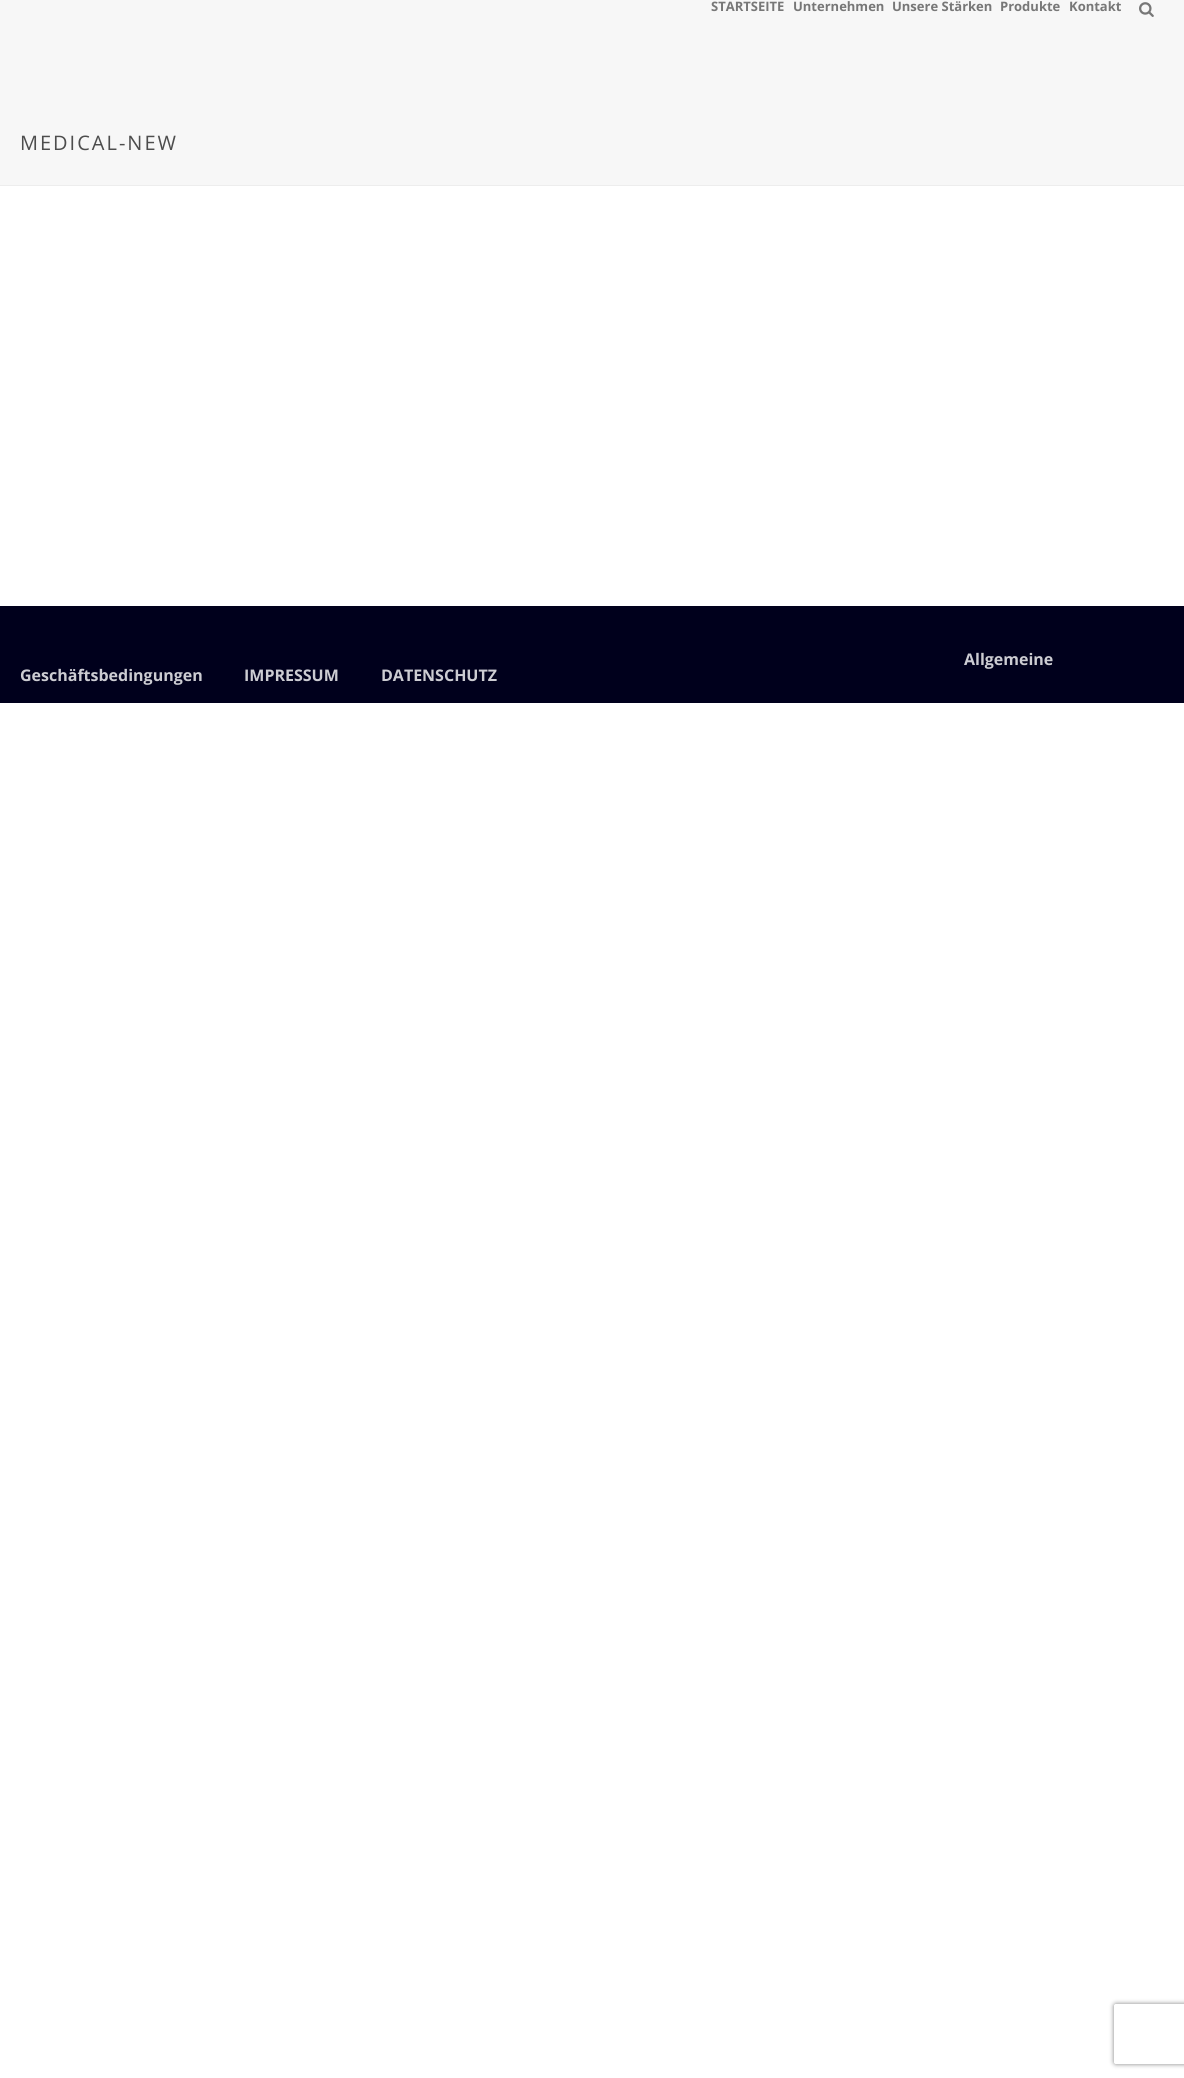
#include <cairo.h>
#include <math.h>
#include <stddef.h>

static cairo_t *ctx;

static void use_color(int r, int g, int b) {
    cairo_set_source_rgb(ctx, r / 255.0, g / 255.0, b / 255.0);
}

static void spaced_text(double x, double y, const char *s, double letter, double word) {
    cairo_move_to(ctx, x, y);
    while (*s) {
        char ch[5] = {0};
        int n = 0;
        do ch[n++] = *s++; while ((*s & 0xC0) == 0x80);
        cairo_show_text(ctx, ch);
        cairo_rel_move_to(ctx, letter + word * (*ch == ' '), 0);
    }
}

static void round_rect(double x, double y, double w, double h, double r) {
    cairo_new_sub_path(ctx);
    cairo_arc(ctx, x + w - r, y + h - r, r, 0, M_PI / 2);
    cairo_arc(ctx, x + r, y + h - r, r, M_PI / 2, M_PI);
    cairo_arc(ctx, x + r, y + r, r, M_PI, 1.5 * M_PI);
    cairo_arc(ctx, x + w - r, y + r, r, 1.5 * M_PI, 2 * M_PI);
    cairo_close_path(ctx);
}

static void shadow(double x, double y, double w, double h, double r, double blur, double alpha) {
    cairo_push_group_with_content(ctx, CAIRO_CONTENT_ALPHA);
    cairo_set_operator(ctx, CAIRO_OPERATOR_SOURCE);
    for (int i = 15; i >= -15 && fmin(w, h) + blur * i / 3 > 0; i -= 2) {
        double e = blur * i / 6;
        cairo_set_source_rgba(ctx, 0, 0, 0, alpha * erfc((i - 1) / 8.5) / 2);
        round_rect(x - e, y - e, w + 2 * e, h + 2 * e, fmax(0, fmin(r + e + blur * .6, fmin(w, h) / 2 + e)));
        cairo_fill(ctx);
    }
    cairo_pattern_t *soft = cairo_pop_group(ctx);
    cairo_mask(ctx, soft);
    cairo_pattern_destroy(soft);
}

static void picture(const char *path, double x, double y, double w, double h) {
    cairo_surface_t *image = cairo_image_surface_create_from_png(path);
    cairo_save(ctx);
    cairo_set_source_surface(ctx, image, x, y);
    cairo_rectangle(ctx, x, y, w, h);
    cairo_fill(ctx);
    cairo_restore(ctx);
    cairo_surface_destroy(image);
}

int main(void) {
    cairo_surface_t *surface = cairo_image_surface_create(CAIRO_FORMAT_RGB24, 1184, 2078);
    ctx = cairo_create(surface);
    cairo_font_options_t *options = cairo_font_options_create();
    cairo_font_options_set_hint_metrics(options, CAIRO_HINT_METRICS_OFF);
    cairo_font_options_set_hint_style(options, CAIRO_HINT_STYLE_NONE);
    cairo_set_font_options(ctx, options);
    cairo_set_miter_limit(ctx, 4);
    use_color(255, 255, 255);
    cairo_paint(ctx);
    use_color(247, 247, 247);
    cairo_rectangle(ctx, 0, 0, 1184, 185);
    cairo_fill(ctx);
    use_color(237, 237, 237);
    cairo_rectangle(ctx, 0, 185, 1184, 1);
    cairo_fill(ctx);
    cairo_select_font_face(ctx, "Open Sans", CAIRO_FONT_SLANT_NORMAL, CAIRO_FONT_WEIGHT_BOLD);
    cairo_set_font_size(ctx, 13);
    use_color(119, 119, 119);
    cairo_move_to(ctx, 711, 11);
    cairo_show_text(ctx, "STARTSEITE");
    cairo_move_to(ctx, 793, 11);
    cairo_show_text(ctx, "Unternehmen");
    cairo_move_to(ctx, 892, 11);
    cairo_show_text(ctx, "Unsere Stärken");
    cairo_move_to(ctx, 1000, 11);
    cairo_show_text(ctx, "Produkte");
    cairo_move_to(ctx, 1069, 11);
    cairo_show_text(ctx, "Kontakt");
    picture("img1.png", 1139, 2, 15, 15);
    cairo_select_font_face(ctx, "Open Sans", CAIRO_FONT_SLANT_NORMAL, CAIRO_FONT_WEIGHT_NORMAL);
    cairo_set_font_size(ctx, 20);
    use_color(77, 77, 77);
    spaced_text(20, 150, "MEDICAL-NEW", 2, 0);
    use_color(0, 0, 28);
    cairo_rectangle(ctx, 0, 606, 1184, 97);
    cairo_fill(ctx);
    cairo_select_font_face(ctx, "Open Sans", CAIRO_FONT_SLANT_NORMAL, CAIRO_FONT_WEIGHT_BOLD);
    cairo_set_font_size(ctx, 16);
    use_color(204, 204, 210);
    cairo_move_to(ctx, 964, 665);
    cairo_show_text(ctx, "Allgemeine");
    cairo_move_to(ctx, 20, 681);
    cairo_show_text(ctx, "Geschäftsbedingungen");
    cairo_move_to(ctx, 244, 681);
    cairo_show_text(ctx, "IMPRESSUM");
    cairo_move_to(ctx, 381, 681);
    cairo_show_text(ctx, "DATENSCHUTZ");
    cairo_save(ctx);
    cairo_set_fill_rule(ctx, CAIRO_FILL_RULE_EVEN_ODD);
    cairo_new_path(ctx);
    cairo_move_to(ctx, 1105, 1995);
    cairo_line_to(ctx, 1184, 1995);
    cairo_line_to(ctx, 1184, 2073);
    cairo_line_to(ctx, 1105, 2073);
    cairo_close_path(ctx);
    cairo_move_to(ctx, 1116, 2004);
    cairo_line_to(ctx, 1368, 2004);
    cairo_curve_to(ctx, 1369, 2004, 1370, 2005, 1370, 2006);
    cairo_line_to(ctx, 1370, 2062);
    cairo_curve_to(ctx, 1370, 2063, 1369, 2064, 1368, 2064);
    cairo_line_to(ctx, 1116, 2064);
    cairo_curve_to(ctx, 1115, 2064, 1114, 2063, 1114, 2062);
    cairo_line_to(ctx, 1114, 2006);
    cairo_curve_to(ctx, 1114, 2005, 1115, 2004, 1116, 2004);
    cairo_close_path(ctx);
    cairo_clip(ctx);
    use_color(128, 128, 128);
    shadow(1114, 2004, 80, 60, 2, 2.5, 1);
    cairo_restore(ctx);
    cairo_surface_write_to_png(surface, "result.png");
    cairo_font_options_destroy(options);
    cairo_destroy(ctx);
    cairo_surface_destroy(surface);
    return 0;
}
